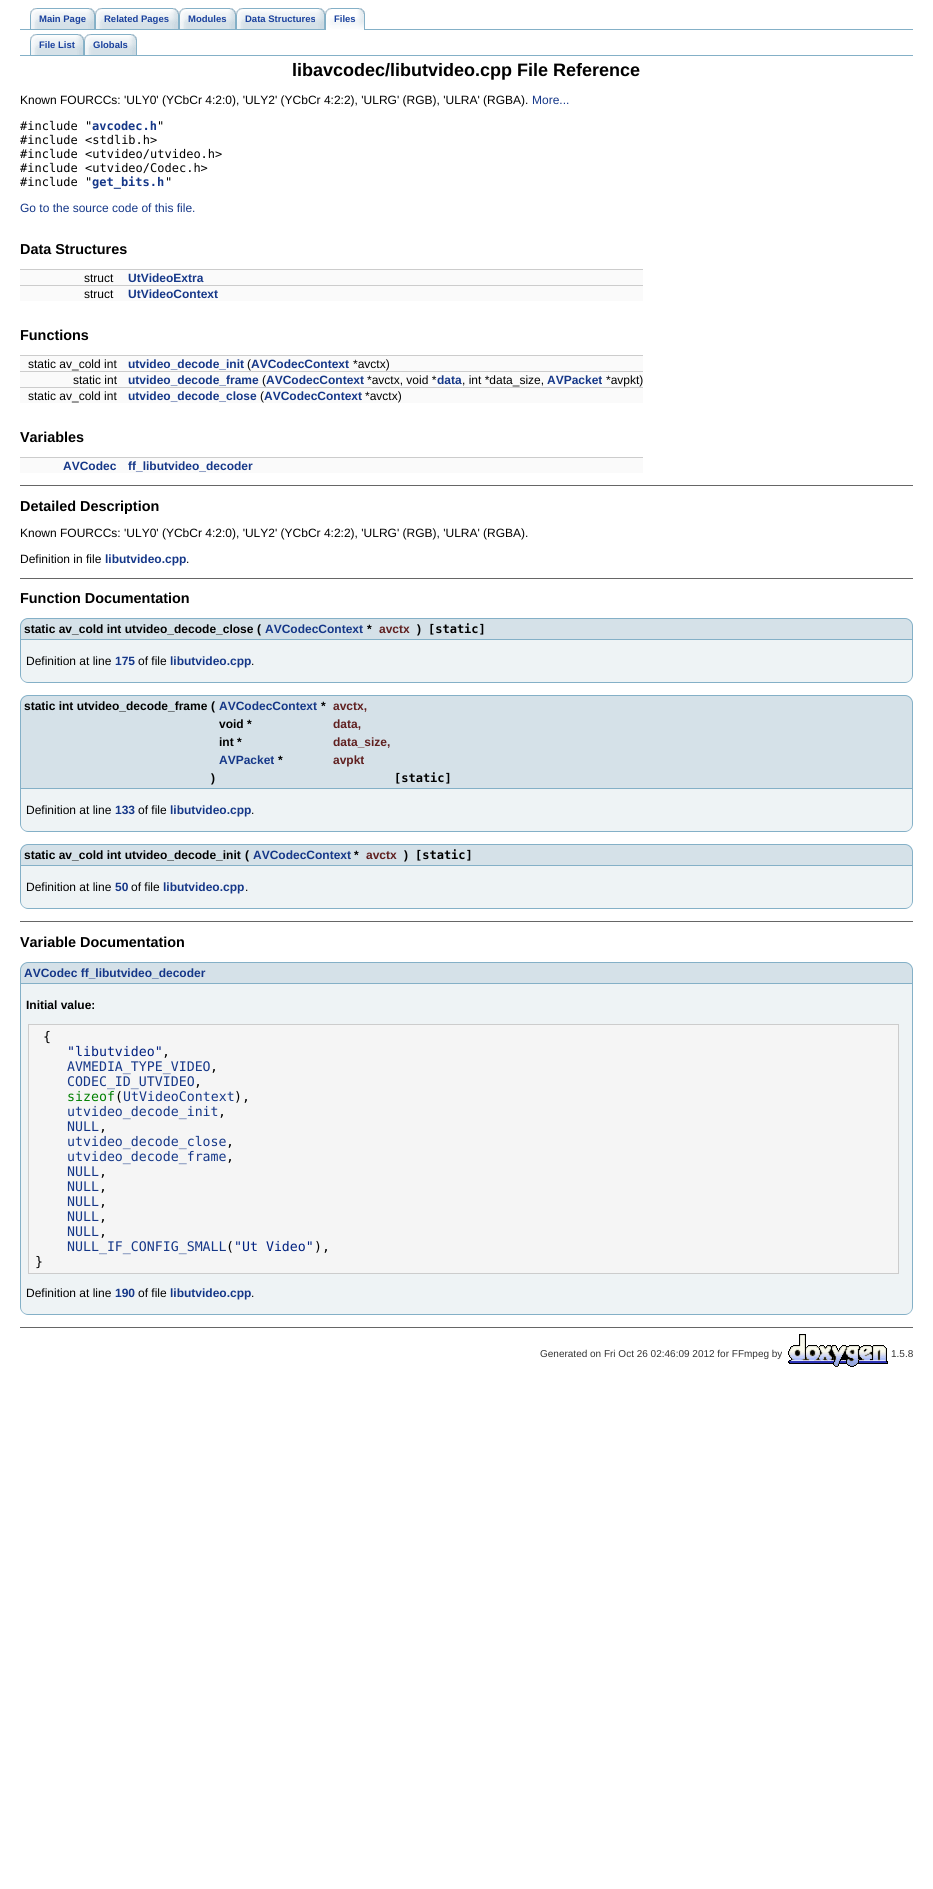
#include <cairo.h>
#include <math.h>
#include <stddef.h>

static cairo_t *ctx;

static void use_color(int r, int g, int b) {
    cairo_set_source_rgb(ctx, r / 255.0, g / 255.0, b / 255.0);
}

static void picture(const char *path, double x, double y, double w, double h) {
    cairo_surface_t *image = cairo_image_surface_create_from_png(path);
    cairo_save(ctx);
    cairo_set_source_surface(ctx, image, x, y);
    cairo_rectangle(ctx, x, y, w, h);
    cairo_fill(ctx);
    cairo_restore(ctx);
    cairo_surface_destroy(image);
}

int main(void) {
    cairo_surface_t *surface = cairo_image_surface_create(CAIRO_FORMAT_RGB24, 933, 1889);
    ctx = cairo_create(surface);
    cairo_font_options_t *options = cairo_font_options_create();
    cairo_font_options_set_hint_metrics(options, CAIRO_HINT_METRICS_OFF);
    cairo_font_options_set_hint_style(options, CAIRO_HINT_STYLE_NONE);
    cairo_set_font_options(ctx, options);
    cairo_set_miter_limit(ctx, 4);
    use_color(255, 255, 255);
    cairo_paint(ctx);
    use_color(132, 176, 199);
    cairo_rectangle(ctx, 20, 29, 893, 1);
    cairo_fill(ctx);
    picture("img1.png", 39, 8, 56, 21);
    picture("img2.png", 30, 8, 9, 21);
    cairo_select_font_face(ctx, "Liberation Sans", CAIRO_FONT_SLANT_NORMAL, CAIRO_FONT_WEIGHT_BOLD);
    cairo_set_font_size(ctx, 9.5);
    use_color(26, 65, 157);
    cairo_move_to(ctx, 39, 22);
    cairo_show_text(ctx, "Main Page");
    picture("img3.png", 104, 8, 75, 21);
    picture("img2.png", 95, 8, 9, 21);
    cairo_move_to(ctx, 104, 22);
    cairo_show_text(ctx, "Related Pages");
    picture("img4.png", 188, 8, 48, 21);
    picture("img2.png", 179, 8, 9, 21);
    cairo_move_to(ctx, 188, 22);
    cairo_show_text(ctx, "Modules");
    picture("img5.png", 245, 8, 80, 21);
    picture("img2.png", 236, 8, 9, 21);
    cairo_move_to(ctx, 245, 22);
    cairo_show_text(ctx, "Data Structures");
    picture("img6.png", 332, 8, 33, 22);
    picture("img7.png", 325, 8, 7, 22);
    cairo_move_to(ctx, 334, 22);
    cairo_show_text(ctx, "Files");
    use_color(132, 176, 199);
    cairo_rectangle(ctx, 20, 55, 893, 1);
    cairo_fill(ctx);
    picture("img8.png", 39, 34, 45, 21);
    picture("img2.png", 30, 34, 9, 21);
    use_color(26, 65, 157);
    cairo_move_to(ctx, 39, 48);
    cairo_show_text(ctx, "File List");
    picture("img9.png", 93, 34, 44, 21);
    picture("img2.png", 84, 34, 9, 21);
    cairo_move_to(ctx, 93, 48);
    cairo_show_text(ctx, "Globals");
    cairo_set_font_size(ctx, 18);
    use_color(0, 0, 0);
    cairo_move_to(ctx, 292, 76);
    cairo_show_text(ctx, "libavcodec/libutvideo.cpp File Reference");
    cairo_select_font_face(ctx, "Liberation Sans", CAIRO_FONT_SLANT_NORMAL, CAIRO_FONT_WEIGHT_NORMAL);
    cairo_set_font_size(ctx, 12);
    cairo_move_to(ctx, 20, 104);
    cairo_show_text(ctx, "Known FOURCCs: 'ULY0' (YCbCr 4:2:0), 'ULY2' (YCbCr 4:2:2), 'ULRG' (RGB), 'ULRA' (RGBA).");
    use_color(21, 55, 136);
    cairo_move_to(ctx, 532, 104);
    cairo_show_text(ctx, "More...");
    cairo_select_font_face(ctx, "DejaVu Sans Mono", CAIRO_FONT_SLANT_NORMAL, CAIRO_FONT_WEIGHT_NORMAL);
    use_color(0, 0, 0);
    cairo_move_to(ctx, 20, 130);
    cairo_show_text(ctx, "#include \"");
    cairo_select_font_face(ctx, "DejaVu Sans Mono", CAIRO_FONT_SLANT_NORMAL, CAIRO_FONT_WEIGHT_BOLD);
    use_color(21, 55, 136);
    cairo_move_to(ctx, 92, 130);
    cairo_show_text(ctx, "avcodec.h");
    cairo_select_font_face(ctx, "DejaVu Sans Mono", CAIRO_FONT_SLANT_NORMAL, CAIRO_FONT_WEIGHT_NORMAL);
    use_color(0, 0, 0);
    cairo_move_to(ctx, 157, 130);
    cairo_show_text(ctx, "\"");
    cairo_move_to(ctx, 20, 144);
    cairo_show_text(ctx, "#include <stdlib.h>");
    cairo_move_to(ctx, 20, 158);
    cairo_show_text(ctx, "#include <utvideo/utvideo.h>");
    cairo_move_to(ctx, 20, 172);
    cairo_show_text(ctx, "#include <utvideo/Codec.h>");
    cairo_move_to(ctx, 20, 186);
    cairo_show_text(ctx, "#include \"");
    cairo_select_font_face(ctx, "DejaVu Sans Mono", CAIRO_FONT_SLANT_NORMAL, CAIRO_FONT_WEIGHT_BOLD);
    use_color(21, 55, 136);
    cairo_move_to(ctx, 92, 186);
    cairo_show_text(ctx, "get_bits.h");
    cairo_select_font_face(ctx, "DejaVu Sans Mono", CAIRO_FONT_SLANT_NORMAL, CAIRO_FONT_WEIGHT_NORMAL);
    use_color(0, 0, 0);
    cairo_move_to(ctx, 165, 186);
    cairo_show_text(ctx, "\"");
    cairo_select_font_face(ctx, "Liberation Sans", CAIRO_FONT_SLANT_NORMAL, CAIRO_FONT_WEIGHT_NORMAL);
    use_color(21, 55, 136);
    cairo_move_to(ctx, 20, 212);
    cairo_show_text(ctx, "Go to the source code of this file.");
    cairo_select_font_face(ctx, "Liberation Sans", CAIRO_FONT_SLANT_NORMAL, CAIRO_FONT_WEIGHT_BOLD);
    cairo_set_font_size(ctx, 14.4);
    use_color(0, 0, 0);
    cairo_move_to(ctx, 20, 254);
    cairo_show_text(ctx, "Data Structures");
    use_color(250, 250, 250);
    cairo_rectangle(ctx, 20, 270, 623, 15);
    cairo_fill(ctx);
    use_color(204, 204, 204);
    cairo_rectangle(ctx, 20, 269, 623, 1);
    cairo_fill(ctx);
    cairo_select_font_face(ctx, "Liberation Sans", CAIRO_FONT_SLANT_NORMAL, CAIRO_FONT_WEIGHT_NORMAL);
    cairo_set_font_size(ctx, 12);
    use_color(0, 0, 0);
    cairo_move_to(ctx, 84, 282);
    cairo_show_text(ctx, "struct");
    cairo_select_font_face(ctx, "Liberation Sans", CAIRO_FONT_SLANT_NORMAL, CAIRO_FONT_WEIGHT_BOLD);
    use_color(21, 55, 136);
    cairo_move_to(ctx, 128, 282);
    cairo_show_text(ctx, "UtVideoExtra");
    use_color(250, 250, 250);
    cairo_rectangle(ctx, 20, 286, 623, 15);
    cairo_fill(ctx);
    use_color(204, 204, 204);
    cairo_rectangle(ctx, 20, 285, 623, 1);
    cairo_fill(ctx);
    cairo_select_font_face(ctx, "Liberation Sans", CAIRO_FONT_SLANT_NORMAL, CAIRO_FONT_WEIGHT_NORMAL);
    use_color(0, 0, 0);
    cairo_move_to(ctx, 84, 298);
    cairo_show_text(ctx, "struct");
    cairo_select_font_face(ctx, "Liberation Sans", CAIRO_FONT_SLANT_NORMAL, CAIRO_FONT_WEIGHT_BOLD);
    use_color(21, 55, 136);
    cairo_move_to(ctx, 128, 298);
    cairo_show_text(ctx, "UtVideoContext");
    cairo_set_font_size(ctx, 14.4);
    use_color(0, 0, 0);
    cairo_move_to(ctx, 20, 340);
    cairo_show_text(ctx, "Functions");
    use_color(250, 250, 250);
    cairo_rectangle(ctx, 20, 356, 623, 15);
    cairo_fill(ctx);
    use_color(204, 204, 204);
    cairo_rectangle(ctx, 20, 355, 623, 1);
    cairo_fill(ctx);
    cairo_select_font_face(ctx, "Liberation Sans", CAIRO_FONT_SLANT_NORMAL, CAIRO_FONT_WEIGHT_NORMAL);
    cairo_set_font_size(ctx, 12);
    use_color(0, 0, 0);
    cairo_move_to(ctx, 28, 368);
    cairo_show_text(ctx, "static av_cold int");
    cairo_select_font_face(ctx, "Liberation Sans", CAIRO_FONT_SLANT_NORMAL, CAIRO_FONT_WEIGHT_BOLD);
    use_color(21, 55, 136);
    cairo_move_to(ctx, 128, 368);
    cairo_show_text(ctx, "utvideo_decode_init");
    cairo_select_font_face(ctx, "Liberation Sans", CAIRO_FONT_SLANT_NORMAL, CAIRO_FONT_WEIGHT_NORMAL);
    use_color(0, 0, 0);
    cairo_move_to(ctx, 247, 368);
    cairo_show_text(ctx, "(");
    cairo_select_font_face(ctx, "Liberation Sans", CAIRO_FONT_SLANT_NORMAL, CAIRO_FONT_WEIGHT_BOLD);
    use_color(21, 55, 136);
    cairo_move_to(ctx, 251, 368);
    cairo_show_text(ctx, "AVCodecContext");
    cairo_select_font_face(ctx, "Liberation Sans", CAIRO_FONT_SLANT_NORMAL, CAIRO_FONT_WEIGHT_NORMAL);
    use_color(0, 0, 0);
    cairo_move_to(ctx, 353, 368);
    cairo_show_text(ctx, "*avctx)");
    use_color(250, 250, 250);
    cairo_rectangle(ctx, 20, 372, 623, 15);
    cairo_fill(ctx);
    use_color(204, 204, 204);
    cairo_rectangle(ctx, 20, 371, 623, 1);
    cairo_fill(ctx);
    use_color(0, 0, 0);
    cairo_move_to(ctx, 73, 384);
    cairo_show_text(ctx, "static int");
    cairo_select_font_face(ctx, "Liberation Sans", CAIRO_FONT_SLANT_NORMAL, CAIRO_FONT_WEIGHT_BOLD);
    use_color(21, 55, 136);
    cairo_move_to(ctx, 128, 384);
    cairo_show_text(ctx, "utvideo_decode_frame");
    cairo_select_font_face(ctx, "Liberation Sans", CAIRO_FONT_SLANT_NORMAL, CAIRO_FONT_WEIGHT_NORMAL);
    use_color(0, 0, 0);
    cairo_move_to(ctx, 262, 384);
    cairo_show_text(ctx, "(");
    cairo_select_font_face(ctx, "Liberation Sans", CAIRO_FONT_SLANT_NORMAL, CAIRO_FONT_WEIGHT_BOLD);
    use_color(21, 55, 136);
    cairo_move_to(ctx, 266, 384);
    cairo_show_text(ctx, "AVCodecContext");
    cairo_select_font_face(ctx, "Liberation Sans", CAIRO_FONT_SLANT_NORMAL, CAIRO_FONT_WEIGHT_NORMAL);
    use_color(0, 0, 0);
    cairo_move_to(ctx, 367, 384);
    cairo_show_text(ctx, "*avctx, void *");
    cairo_select_font_face(ctx, "Liberation Sans", CAIRO_FONT_SLANT_NORMAL, CAIRO_FONT_WEIGHT_BOLD);
    use_color(21, 55, 136);
    cairo_move_to(ctx, 437, 384);
    cairo_show_text(ctx, "data");
    cairo_select_font_face(ctx, "Liberation Sans", CAIRO_FONT_SLANT_NORMAL, CAIRO_FONT_WEIGHT_NORMAL);
    use_color(0, 0, 0);
    cairo_move_to(ctx, 462, 384);
    cairo_show_text(ctx, ", int *data_size,");
    cairo_select_font_face(ctx, "Liberation Sans", CAIRO_FONT_SLANT_NORMAL, CAIRO_FONT_WEIGHT_BOLD);
    use_color(21, 55, 136);
    cairo_move_to(ctx, 547, 384);
    cairo_show_text(ctx, "AVPacket");
    cairo_select_font_face(ctx, "Liberation Sans", CAIRO_FONT_SLANT_NORMAL, CAIRO_FONT_WEIGHT_NORMAL);
    use_color(0, 0, 0);
    cairo_move_to(ctx, 606, 384);
    cairo_show_text(ctx, "*avpkt)");
    use_color(250, 250, 250);
    cairo_rectangle(ctx, 20, 388, 623, 15);
    cairo_fill(ctx);
    use_color(204, 204, 204);
    cairo_rectangle(ctx, 20, 387, 623, 1);
    cairo_fill(ctx);
    use_color(0, 0, 0);
    cairo_move_to(ctx, 28, 400);
    cairo_show_text(ctx, "static av_cold int");
    cairo_select_font_face(ctx, "Liberation Sans", CAIRO_FONT_SLANT_NORMAL, CAIRO_FONT_WEIGHT_BOLD);
    use_color(21, 55, 136);
    cairo_move_to(ctx, 128, 400);
    cairo_show_text(ctx, "utvideo_decode_close");
    cairo_select_font_face(ctx, "Liberation Sans", CAIRO_FONT_SLANT_NORMAL, CAIRO_FONT_WEIGHT_NORMAL);
    use_color(0, 0, 0);
    cairo_move_to(ctx, 260, 400);
    cairo_show_text(ctx, "(");
    cairo_select_font_face(ctx, "Liberation Sans", CAIRO_FONT_SLANT_NORMAL, CAIRO_FONT_WEIGHT_BOLD);
    use_color(21, 55, 136);
    cairo_move_to(ctx, 264, 400);
    cairo_show_text(ctx, "AVCodecContext");
    cairo_select_font_face(ctx, "Liberation Sans", CAIRO_FONT_SLANT_NORMAL, CAIRO_FONT_WEIGHT_NORMAL);
    use_color(0, 0, 0);
    cairo_move_to(ctx, 365, 400);
    cairo_show_text(ctx, "*avctx)");
    cairo_select_font_face(ctx, "Liberation Sans", CAIRO_FONT_SLANT_NORMAL, CAIRO_FONT_WEIGHT_BOLD);
    cairo_set_font_size(ctx, 14.4);
    cairo_move_to(ctx, 20, 442);
    cairo_show_text(ctx, "Variables");
    use_color(250, 250, 250);
    cairo_rectangle(ctx, 20, 458, 623, 15);
    cairo_fill(ctx);
    use_color(204, 204, 204);
    cairo_rectangle(ctx, 20, 457, 623, 1);
    cairo_fill(ctx);
    cairo_set_font_size(ctx, 12);
    use_color(21, 55, 136);
    cairo_move_to(ctx, 63, 470);
    cairo_show_text(ctx, "AVCodec");
    cairo_move_to(ctx, 128, 470);
    cairo_show_text(ctx, "ff_libutvideo_decoder");
    use_color(102, 102, 102);
    cairo_rectangle(ctx, 20, 485, 893, 1);
    cairo_fill(ctx);
    cairo_set_font_size(ctx, 14.4);
    use_color(0, 0, 0);
    cairo_move_to(ctx, 20, 511);
    cairo_show_text(ctx, "Detailed Description");
    cairo_select_font_face(ctx, "Liberation Sans", CAIRO_FONT_SLANT_NORMAL, CAIRO_FONT_WEIGHT_NORMAL);
    cairo_set_font_size(ctx, 12);
    cairo_move_to(ctx, 20, 537);
    cairo_show_text(ctx, "Known FOURCCs: 'ULY0' (YCbCr 4:2:0), 'ULY2' (YCbCr 4:2:2), 'ULRG' (RGB), 'ULRA' (RGBA).");
    cairo_move_to(ctx, 20, 563);
    cairo_show_text(ctx, "Definition in file");
    cairo_select_font_face(ctx, "Liberation Sans", CAIRO_FONT_SLANT_NORMAL, CAIRO_FONT_WEIGHT_BOLD);
    use_color(21, 55, 136);
    cairo_move_to(ctx, 105, 563);
    cairo_show_text(ctx, "libutvideo.cpp");
    cairo_select_font_face(ctx, "Liberation Sans", CAIRO_FONT_SLANT_NORMAL, CAIRO_FONT_WEIGHT_NORMAL);
    use_color(0, 0, 0);
    cairo_move_to(ctx, 186, 563);
    cairo_show_text(ctx, ".");
    use_color(102, 102, 102);
    cairo_rectangle(ctx, 20, 578, 893, 1);
    cairo_fill(ctx);
    cairo_select_font_face(ctx, "Liberation Sans", CAIRO_FONT_SLANT_NORMAL, CAIRO_FONT_WEIGHT_BOLD);
    cairo_set_font_size(ctx, 14.4);
    use_color(0, 0, 0);
    cairo_move_to(ctx, 20, 603);
    cairo_show_text(ctx, "Function Documentation");
    use_color(213, 225, 232);
    cairo_new_path(ctx);
    cairo_move_to(ctx, 28, 618.5);
    cairo_line_to(ctx, 905, 618.5);
    cairo_curve_to(ctx, 909, 618.5, 912.5, 622, 912.5, 626);
    cairo_line_to(ctx, 912.5, 639.5);
    cairo_line_to(ctx, 20.5, 639.5);
    cairo_line_to(ctx, 20.5, 626);
    cairo_curve_to(ctx, 20.5, 622, 24, 618.5, 28, 618.5);
    cairo_close_path(ctx);
    cairo_fill_preserve(ctx);
    use_color(132, 176, 199);
    cairo_set_line_width(ctx, 1);
    cairo_stroke(ctx);
    cairo_set_font_size(ctx, 12);
    use_color(0, 0, 0);
    cairo_move_to(ctx, 24, 633);
    cairo_show_text(ctx, "static av_cold int utvideo_decode_close");
    cairo_move_to(ctx, 257, 633);
    cairo_show_text(ctx, "(");
    use_color(21, 55, 136);
    cairo_move_to(ctx, 265, 633);
    cairo_show_text(ctx, "AVCodecContext");
    use_color(0, 0, 0);
    cairo_move_to(ctx, 367, 633);
    cairo_show_text(ctx, "*");
    use_color(96, 32, 32);
    cairo_move_to(ctx, 379, 633);
    cairo_show_text(ctx, "avctx");
    use_color(0, 0, 0);
    cairo_move_to(ctx, 417, 633);
    cairo_show_text(ctx, ")");
    cairo_select_font_face(ctx, "DejaVu Sans Mono", CAIRO_FONT_SLANT_NORMAL, CAIRO_FONT_WEIGHT_BOLD);
    cairo_move_to(ctx, 428, 633);
    cairo_show_text(ctx, "[static]");
    use_color(238, 243, 245);
    cairo_new_path(ctx);
    cairo_move_to(ctx, 21, 640);
    cairo_line_to(ctx, 912, 640);
    cairo_line_to(ctx, 912, 675);
    cairo_curve_to(ctx, 912, 679, 909, 682, 905, 682);
    cairo_line_to(ctx, 28, 682);
    cairo_curve_to(ctx, 24, 682, 21, 679, 21, 675);
    cairo_close_path(ctx);
    cairo_fill(ctx);
    use_color(132, 176, 199);
    cairo_set_fill_rule(ctx, CAIRO_FILL_RULE_EVEN_ODD);
    cairo_new_path(ctx);
    cairo_move_to(ctx, 20, 640);
    cairo_line_to(ctx, 913, 640);
    cairo_line_to(ctx, 913, 675);
    cairo_curve_to(ctx, 913, 679, 909, 683, 905, 683);
    cairo_line_to(ctx, 28, 683);
    cairo_curve_to(ctx, 24, 683, 20, 679, 20, 675);
    cairo_close_path(ctx);
    cairo_move_to(ctx, 21, 640);
    cairo_line_to(ctx, 912, 640);
    cairo_line_to(ctx, 912, 675);
    cairo_curve_to(ctx, 912, 679, 909, 682, 905, 682);
    cairo_line_to(ctx, 28, 682);
    cairo_curve_to(ctx, 24, 682, 21, 679, 21, 675);
    cairo_close_path(ctx);
    cairo_fill(ctx);
    cairo_select_font_face(ctx, "Liberation Sans", CAIRO_FONT_SLANT_NORMAL, CAIRO_FONT_WEIGHT_NORMAL);
    use_color(0, 0, 0);
    cairo_move_to(ctx, 26, 665);
    cairo_show_text(ctx, "Definition at line");
    cairo_select_font_face(ctx, "Liberation Sans", CAIRO_FONT_SLANT_NORMAL, CAIRO_FONT_WEIGHT_BOLD);
    use_color(21, 55, 136);
    cairo_move_to(ctx, 115, 665);
    cairo_show_text(ctx, "175");
    cairo_select_font_face(ctx, "Liberation Sans", CAIRO_FONT_SLANT_NORMAL, CAIRO_FONT_WEIGHT_NORMAL);
    use_color(0, 0, 0);
    cairo_move_to(ctx, 138, 665);
    cairo_show_text(ctx, "of file");
    cairo_select_font_face(ctx, "Liberation Sans", CAIRO_FONT_SLANT_NORMAL, CAIRO_FONT_WEIGHT_BOLD);
    use_color(21, 55, 136);
    cairo_move_to(ctx, 170, 665);
    cairo_show_text(ctx, "libutvideo.cpp");
    cairo_select_font_face(ctx, "Liberation Sans", CAIRO_FONT_SLANT_NORMAL, CAIRO_FONT_WEIGHT_NORMAL);
    use_color(0, 0, 0);
    cairo_move_to(ctx, 251, 665);
    cairo_show_text(ctx, ".");
    use_color(213, 225, 232);
    cairo_new_path(ctx);
    cairo_move_to(ctx, 28, 695.5);
    cairo_line_to(ctx, 905, 695.5);
    cairo_curve_to(ctx, 909, 695.5, 912.5, 699, 912.5, 703);
    cairo_line_to(ctx, 912.5, 788.5);
    cairo_line_to(ctx, 20.5, 788.5);
    cairo_line_to(ctx, 20.5, 703);
    cairo_curve_to(ctx, 20.5, 699, 24, 695.5, 28, 695.5);
    cairo_close_path(ctx);
    cairo_fill_preserve(ctx);
    use_color(132, 176, 199);
    cairo_stroke(ctx);
    cairo_select_font_face(ctx, "Liberation Sans", CAIRO_FONT_SLANT_NORMAL, CAIRO_FONT_WEIGHT_BOLD);
    use_color(0, 0, 0);
    cairo_move_to(ctx, 24, 710);
    cairo_show_text(ctx, "static int utvideo_decode_frame");
    cairo_move_to(ctx, 211, 710);
    cairo_show_text(ctx, "(");
    use_color(21, 55, 136);
    cairo_move_to(ctx, 219, 710);
    cairo_show_text(ctx, "AVCodecContext");
    use_color(0, 0, 0);
    cairo_move_to(ctx, 321, 710);
    cairo_show_text(ctx, "*");
    use_color(96, 32, 32);
    cairo_move_to(ctx, 333, 710);
    cairo_show_text(ctx, "avctx,");
    use_color(0, 0, 0);
    cairo_move_to(ctx, 219, 728);
    cairo_show_text(ctx, "void *");
    use_color(96, 32, 32);
    cairo_move_to(ctx, 333, 728);
    cairo_show_text(ctx, "data,");
    use_color(0, 0, 0);
    cairo_move_to(ctx, 219, 746);
    cairo_show_text(ctx, "int *");
    use_color(96, 32, 32);
    cairo_move_to(ctx, 333, 746);
    cairo_show_text(ctx, "data_size,");
    use_color(21, 55, 136);
    cairo_move_to(ctx, 219, 764);
    cairo_show_text(ctx, "AVPacket");
    use_color(0, 0, 0);
    cairo_move_to(ctx, 278, 764);
    cairo_show_text(ctx, "*");
    use_color(96, 32, 32);
    cairo_move_to(ctx, 333, 764);
    cairo_show_text(ctx, "avpkt");
    use_color(0, 0, 0);
    cairo_move_to(ctx, 211, 782);
    cairo_show_text(ctx, ")");
    cairo_select_font_face(ctx, "DejaVu Sans Mono", CAIRO_FONT_SLANT_NORMAL, CAIRO_FONT_WEIGHT_BOLD);
    cairo_move_to(ctx, 394, 782);
    cairo_show_text(ctx, "[static]");
    use_color(238, 243, 245);
    cairo_new_path(ctx);
    cairo_move_to(ctx, 21, 789);
    cairo_line_to(ctx, 912, 789);
    cairo_line_to(ctx, 912, 824);
    cairo_curve_to(ctx, 912, 828, 909, 831, 905, 831);
    cairo_line_to(ctx, 28, 831);
    cairo_curve_to(ctx, 24, 831, 21, 828, 21, 824);
    cairo_close_path(ctx);
    cairo_fill(ctx);
    use_color(132, 176, 199);
    cairo_new_path(ctx);
    cairo_move_to(ctx, 20, 789);
    cairo_line_to(ctx, 913, 789);
    cairo_line_to(ctx, 913, 824);
    cairo_curve_to(ctx, 913, 828, 909, 832, 905, 832);
    cairo_line_to(ctx, 28, 832);
    cairo_curve_to(ctx, 24, 832, 20, 828, 20, 824);
    cairo_close_path(ctx);
    cairo_move_to(ctx, 21, 789);
    cairo_line_to(ctx, 912, 789);
    cairo_line_to(ctx, 912, 824);
    cairo_curve_to(ctx, 912, 828, 909, 831, 905, 831);
    cairo_line_to(ctx, 28, 831);
    cairo_curve_to(ctx, 24, 831, 21, 828, 21, 824);
    cairo_close_path(ctx);
    cairo_fill(ctx);
    cairo_select_font_face(ctx, "Liberation Sans", CAIRO_FONT_SLANT_NORMAL, CAIRO_FONT_WEIGHT_NORMAL);
    use_color(0, 0, 0);
    cairo_move_to(ctx, 26, 814);
    cairo_show_text(ctx, "Definition at line");
    cairo_select_font_face(ctx, "Liberation Sans", CAIRO_FONT_SLANT_NORMAL, CAIRO_FONT_WEIGHT_BOLD);
    use_color(21, 55, 136);
    cairo_move_to(ctx, 115, 814);
    cairo_show_text(ctx, "133");
    cairo_select_font_face(ctx, "Liberation Sans", CAIRO_FONT_SLANT_NORMAL, CAIRO_FONT_WEIGHT_NORMAL);
    use_color(0, 0, 0);
    cairo_move_to(ctx, 138, 814);
    cairo_show_text(ctx, "of file");
    cairo_select_font_face(ctx, "Liberation Sans", CAIRO_FONT_SLANT_NORMAL, CAIRO_FONT_WEIGHT_BOLD);
    use_color(21, 55, 136);
    cairo_move_to(ctx, 170, 814);
    cairo_show_text(ctx, "libutvideo.cpp");
    cairo_select_font_face(ctx, "Liberation Sans", CAIRO_FONT_SLANT_NORMAL, CAIRO_FONT_WEIGHT_NORMAL);
    use_color(0, 0, 0);
    cairo_move_to(ctx, 251, 814);
    cairo_show_text(ctx, ".");
    use_color(213, 225, 232);
    cairo_new_path(ctx);
    cairo_move_to(ctx, 28, 844.5);
    cairo_line_to(ctx, 905, 844.5);
    cairo_curve_to(ctx, 909, 844.5, 912.5, 848, 912.5, 852);
    cairo_line_to(ctx, 912.5, 865.5);
    cairo_line_to(ctx, 20.5, 865.5);
    cairo_line_to(ctx, 20.5, 852);
    cairo_curve_to(ctx, 20.5, 848, 24, 844.5, 28, 844.5);
    cairo_close_path(ctx);
    cairo_fill_preserve(ctx);
    use_color(132, 176, 199);
    cairo_stroke(ctx);
    cairo_select_font_face(ctx, "Liberation Sans", CAIRO_FONT_SLANT_NORMAL, CAIRO_FONT_WEIGHT_BOLD);
    use_color(0, 0, 0);
    cairo_move_to(ctx, 24, 859);
    cairo_show_text(ctx, "static av_cold int utvideo_decode_init");
    cairo_move_to(ctx, 245, 859);
    cairo_show_text(ctx, "(");
    use_color(21, 55, 136);
    cairo_move_to(ctx, 253, 859);
    cairo_show_text(ctx, "AVCodecContext");
    use_color(0, 0, 0);
    cairo_move_to(ctx, 354, 859);
    cairo_show_text(ctx, "*");
    use_color(96, 32, 32);
    cairo_move_to(ctx, 366, 859);
    cairo_show_text(ctx, "avctx");
    use_color(0, 0, 0);
    cairo_move_to(ctx, 404, 859);
    cairo_show_text(ctx, ")");
    cairo_select_font_face(ctx, "DejaVu Sans Mono", CAIRO_FONT_SLANT_NORMAL, CAIRO_FONT_WEIGHT_BOLD);
    cairo_move_to(ctx, 415, 859);
    cairo_show_text(ctx, "[static]");
    use_color(238, 243, 245);
    cairo_new_path(ctx);
    cairo_move_to(ctx, 21, 866);
    cairo_line_to(ctx, 912, 866);
    cairo_line_to(ctx, 912, 901);
    cairo_curve_to(ctx, 912, 905, 909, 908, 905, 908);
    cairo_line_to(ctx, 28, 908);
    cairo_curve_to(ctx, 24, 908, 21, 905, 21, 901);
    cairo_close_path(ctx);
    cairo_fill(ctx);
    use_color(132, 176, 199);
    cairo_new_path(ctx);
    cairo_move_to(ctx, 20, 866);
    cairo_line_to(ctx, 913, 866);
    cairo_line_to(ctx, 913, 901);
    cairo_curve_to(ctx, 913, 905, 909, 909, 905, 909);
    cairo_line_to(ctx, 28, 909);
    cairo_curve_to(ctx, 24, 909, 20, 905, 20, 901);
    cairo_close_path(ctx);
    cairo_move_to(ctx, 21, 866);
    cairo_line_to(ctx, 912, 866);
    cairo_line_to(ctx, 912, 901);
    cairo_curve_to(ctx, 912, 905, 909, 908, 905, 908);
    cairo_line_to(ctx, 28, 908);
    cairo_curve_to(ctx, 24, 908, 21, 905, 21, 901);
    cairo_close_path(ctx);
    cairo_fill(ctx);
    cairo_select_font_face(ctx, "Liberation Sans", CAIRO_FONT_SLANT_NORMAL, CAIRO_FONT_WEIGHT_NORMAL);
    use_color(0, 0, 0);
    cairo_move_to(ctx, 26, 891);
    cairo_show_text(ctx, "Definition at line");
    cairo_select_font_face(ctx, "Liberation Sans", CAIRO_FONT_SLANT_NORMAL, CAIRO_FONT_WEIGHT_BOLD);
    use_color(21, 55, 136);
    cairo_move_to(ctx, 115, 891);
    cairo_show_text(ctx, "50");
    cairo_select_font_face(ctx, "Liberation Sans", CAIRO_FONT_SLANT_NORMAL, CAIRO_FONT_WEIGHT_NORMAL);
    use_color(0, 0, 0);
    cairo_move_to(ctx, 131, 891);
    cairo_show_text(ctx, "of file");
    cairo_select_font_face(ctx, "Liberation Sans", CAIRO_FONT_SLANT_NORMAL, CAIRO_FONT_WEIGHT_BOLD);
    use_color(21, 55, 136);
    cairo_move_to(ctx, 163, 891);
    cairo_show_text(ctx, "libutvideo.cpp");
    cairo_select_font_face(ctx, "Liberation Sans", CAIRO_FONT_SLANT_NORMAL, CAIRO_FONT_WEIGHT_NORMAL);
    use_color(0, 0, 0);
    cairo_move_to(ctx, 245, 891);
    cairo_show_text(ctx, ".");
    use_color(102, 102, 102);
    cairo_rectangle(ctx, 20, 921, 893, 1);
    cairo_fill(ctx);
    cairo_select_font_face(ctx, "Liberation Sans", CAIRO_FONT_SLANT_NORMAL, CAIRO_FONT_WEIGHT_BOLD);
    cairo_set_font_size(ctx, 14.4);
    use_color(0, 0, 0);
    cairo_move_to(ctx, 20, 947);
    cairo_show_text(ctx, "Variable Documentation");
    use_color(213, 225, 232);
    cairo_new_path(ctx);
    cairo_move_to(ctx, 28, 962.5);
    cairo_line_to(ctx, 905, 962.5);
    cairo_curve_to(ctx, 909, 962.5, 912.5, 966, 912.5, 970);
    cairo_line_to(ctx, 912.5, 983.5);
    cairo_line_to(ctx, 20.5, 983.5);
    cairo_line_to(ctx, 20.5, 970);
    cairo_curve_to(ctx, 20.5, 966, 24, 962.5, 28, 962.5);
    cairo_close_path(ctx);
    cairo_fill_preserve(ctx);
    use_color(132, 176, 199);
    cairo_stroke(ctx);
    cairo_set_font_size(ctx, 12);
    use_color(21, 55, 136);
    cairo_move_to(ctx, 24, 977);
    cairo_show_text(ctx, "AVCodec ff_libutvideo_decoder");
    use_color(238, 243, 245);
    cairo_new_path(ctx);
    cairo_move_to(ctx, 21, 984);
    cairo_line_to(ctx, 912, 984);
    cairo_line_to(ctx, 912, 1307);
    cairo_curve_to(ctx, 912, 1311, 909, 1314, 905, 1314);
    cairo_line_to(ctx, 28, 1314);
    cairo_curve_to(ctx, 24, 1314, 21, 1311, 21, 1307);
    cairo_close_path(ctx);
    cairo_fill(ctx);
    use_color(132, 176, 199);
    cairo_new_path(ctx);
    cairo_move_to(ctx, 20, 984);
    cairo_line_to(ctx, 913, 984);
    cairo_line_to(ctx, 913, 1307);
    cairo_curve_to(ctx, 913, 1311, 909, 1315, 905, 1315);
    cairo_line_to(ctx, 28, 1315);
    cairo_curve_to(ctx, 24, 1315, 20, 1311, 20, 1307);
    cairo_close_path(ctx);
    cairo_move_to(ctx, 21, 984);
    cairo_line_to(ctx, 912, 984);
    cairo_line_to(ctx, 912, 1307);
    cairo_curve_to(ctx, 912, 1311, 909, 1314, 905, 1314);
    cairo_line_to(ctx, 28, 1314);
    cairo_curve_to(ctx, 24, 1314, 21, 1311, 21, 1307);
    cairo_close_path(ctx);
    cairo_fill(ctx);
    use_color(0, 0, 0);
    cairo_move_to(ctx, 26, 1009);
    cairo_show_text(ctx, "Initial value:");
    use_color(245, 245, 245);
    cairo_rectangle(ctx, 28.5, 1024.5, 870, 249);
    cairo_fill_preserve(ctx);
    use_color(204, 204, 204);
    cairo_stroke(ctx);
    cairo_select_font_face(ctx, "DejaVu Sans Mono", CAIRO_FONT_SLANT_NORMAL, CAIRO_FONT_WEIGHT_NORMAL);
    cairo_set_font_size(ctx, 13.25);
    use_color(0, 0, 0);
    cairo_move_to(ctx, 43, 1041);
    cairo_show_text(ctx, "{");
    use_color(0, 32, 128);
    cairo_move_to(ctx, 67, 1056);
    cairo_show_text(ctx, "\"libutvideo\"");
    use_color(0, 0, 0);
    cairo_move_to(ctx, 162, 1056);
    cairo_show_text(ctx, ",");
    use_color(21, 55, 136);
    cairo_move_to(ctx, 67, 1071);
    cairo_show_text(ctx, "AVMEDIA_TYPE_VIDEO");
    use_color(0, 0, 0);
    cairo_move_to(ctx, 210, 1071);
    cairo_show_text(ctx, ",");
    use_color(21, 55, 136);
    cairo_move_to(ctx, 67, 1086);
    cairo_show_text(ctx, "CODEC_ID_UTVIDEO");
    use_color(0, 0, 0);
    cairo_move_to(ctx, 194, 1086);
    cairo_show_text(ctx, ",");
    use_color(0, 128, 0);
    cairo_move_to(ctx, 67, 1101);
    cairo_show_text(ctx, "sizeof");
    use_color(0, 0, 0);
    cairo_move_to(ctx, 115, 1101);
    cairo_show_text(ctx, "(");
    use_color(21, 55, 136);
    cairo_move_to(ctx, 123, 1101);
    cairo_show_text(ctx, "UtVideoContext");
    use_color(0, 0, 0);
    cairo_move_to(ctx, 234, 1101);
    cairo_show_text(ctx, "),");
    use_color(21, 55, 136);
    cairo_move_to(ctx, 67, 1116);
    cairo_show_text(ctx, "utvideo_decode_init");
    use_color(0, 0, 0);
    cairo_move_to(ctx, 218, 1116);
    cairo_show_text(ctx, ",");
    use_color(21, 55, 136);
    cairo_move_to(ctx, 67, 1131);
    cairo_show_text(ctx, "NULL");
    use_color(0, 0, 0);
    cairo_move_to(ctx, 99, 1131);
    cairo_show_text(ctx, ",");
    use_color(21, 55, 136);
    cairo_move_to(ctx, 67, 1146);
    cairo_show_text(ctx, "utvideo_decode_close");
    use_color(0, 0, 0);
    cairo_move_to(ctx, 226, 1146);
    cairo_show_text(ctx, ",");
    use_color(21, 55, 136);
    cairo_move_to(ctx, 67, 1161);
    cairo_show_text(ctx, "utvideo_decode_frame");
    use_color(0, 0, 0);
    cairo_move_to(ctx, 226, 1161);
    cairo_show_text(ctx, ",");
    use_color(21, 55, 136);
    cairo_move_to(ctx, 67, 1176);
    cairo_show_text(ctx, "NULL");
    use_color(0, 0, 0);
    cairo_move_to(ctx, 99, 1176);
    cairo_show_text(ctx, ",");
    use_color(21, 55, 136);
    cairo_move_to(ctx, 67, 1191);
    cairo_show_text(ctx, "NULL");
    use_color(0, 0, 0);
    cairo_move_to(ctx, 99, 1191);
    cairo_show_text(ctx, ",");
    use_color(21, 55, 136);
    cairo_move_to(ctx, 67, 1206);
    cairo_show_text(ctx, "NULL");
    use_color(0, 0, 0);
    cairo_move_to(ctx, 99, 1206);
    cairo_show_text(ctx, ",");
    use_color(21, 55, 136);
    cairo_move_to(ctx, 67, 1221);
    cairo_show_text(ctx, "NULL");
    use_color(0, 0, 0);
    cairo_move_to(ctx, 99, 1221);
    cairo_show_text(ctx, ",");
    use_color(21, 55, 136);
    cairo_move_to(ctx, 67, 1236);
    cairo_show_text(ctx, "NULL");
    use_color(0, 0, 0);
    cairo_move_to(ctx, 99, 1236);
    cairo_show_text(ctx, ",");
    use_color(21, 55, 136);
    cairo_move_to(ctx, 67, 1251);
    cairo_show_text(ctx, "NULL_IF_CONFIG_SMALL");
    use_color(0, 0, 0);
    cairo_move_to(ctx, 226, 1251);
    cairo_show_text(ctx, "(");
    use_color(0, 32, 128);
    cairo_move_to(ctx, 234, 1251);
    cairo_show_text(ctx, "\"Ut Video\"");
    use_color(0, 0, 0);
    cairo_move_to(ctx, 314, 1251);
    cairo_show_text(ctx, "),");
    cairo_move_to(ctx, 35, 1266);
    cairo_show_text(ctx, "}");
    cairo_select_font_face(ctx, "Liberation Sans", CAIRO_FONT_SLANT_NORMAL, CAIRO_FONT_WEIGHT_NORMAL);
    cairo_set_font_size(ctx, 12);
    cairo_move_to(ctx, 26, 1297);
    cairo_show_text(ctx, "Definition at line");
    cairo_select_font_face(ctx, "Liberation Sans", CAIRO_FONT_SLANT_NORMAL, CAIRO_FONT_WEIGHT_BOLD);
    use_color(21, 55, 136);
    cairo_move_to(ctx, 115, 1297);
    cairo_show_text(ctx, "190");
    cairo_select_font_face(ctx, "Liberation Sans", CAIRO_FONT_SLANT_NORMAL, CAIRO_FONT_WEIGHT_NORMAL);
    use_color(0, 0, 0);
    cairo_move_to(ctx, 138, 1297);
    cairo_show_text(ctx, "of file");
    cairo_select_font_face(ctx, "Liberation Sans", CAIRO_FONT_SLANT_NORMAL, CAIRO_FONT_WEIGHT_BOLD);
    use_color(21, 55, 136);
    cairo_move_to(ctx, 170, 1297);
    cairo_show_text(ctx, "libutvideo.cpp");
    cairo_select_font_face(ctx, "Liberation Sans", CAIRO_FONT_SLANT_NORMAL, CAIRO_FONT_WEIGHT_NORMAL);
    use_color(0, 0, 0);
    cairo_move_to(ctx, 251, 1297);
    cairo_show_text(ctx, ".");
    use_color(102, 102, 102);
    cairo_rectangle(ctx, 20, 1327, 893, 1);
    cairo_fill(ctx);
    cairo_set_font_size(ctx, 10);
    use_color(51, 51, 51);
    cairo_move_to(ctx, 540, 1357);
    cairo_show_text(ctx, "Generated on Fri Oct 26 02:46:09 2012 for FFmpeg by");
    picture("img10.png", 788, 1334, 100, 33);
    cairo_move_to(ctx, 891, 1357);
    cairo_show_text(ctx, "1.5.8");
    cairo_surface_write_to_png(surface, "result.png");
    cairo_font_options_destroy(options);
    cairo_destroy(ctx);
    cairo_surface_destroy(surface);
    return 0;
}
